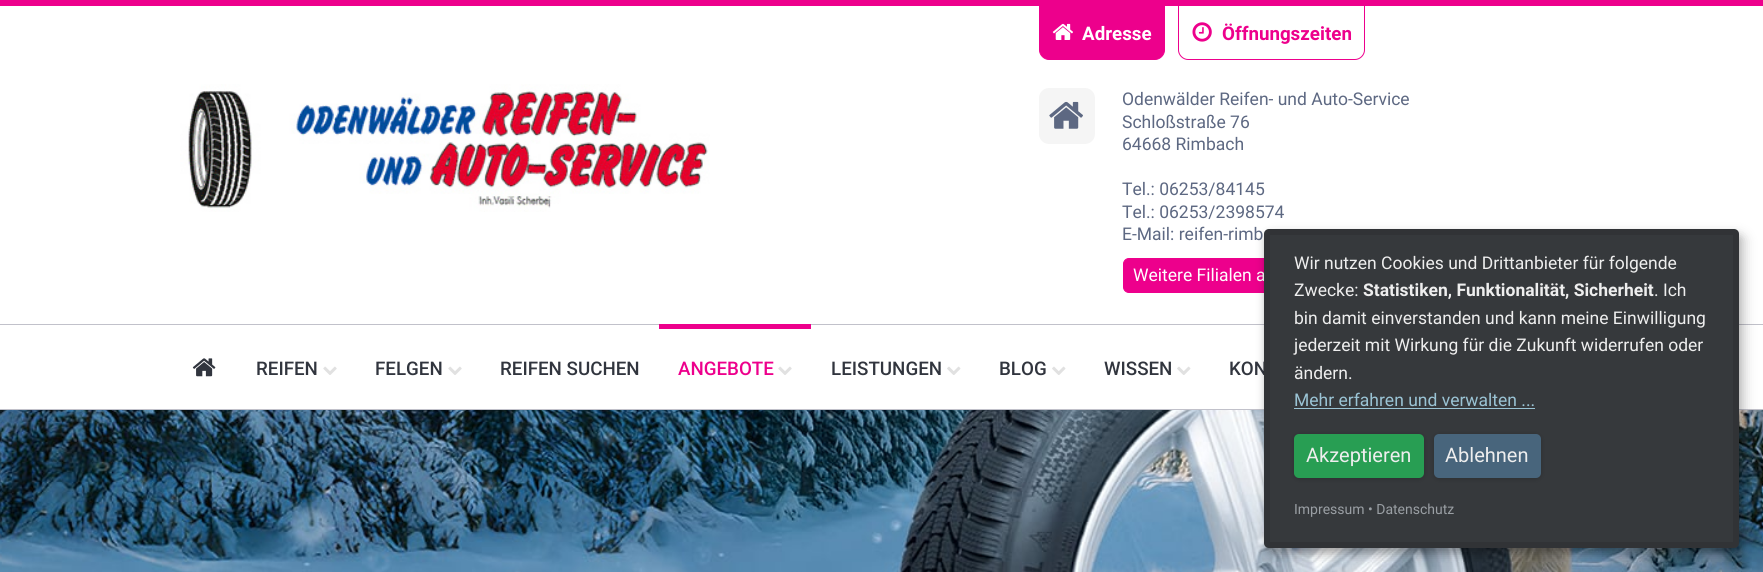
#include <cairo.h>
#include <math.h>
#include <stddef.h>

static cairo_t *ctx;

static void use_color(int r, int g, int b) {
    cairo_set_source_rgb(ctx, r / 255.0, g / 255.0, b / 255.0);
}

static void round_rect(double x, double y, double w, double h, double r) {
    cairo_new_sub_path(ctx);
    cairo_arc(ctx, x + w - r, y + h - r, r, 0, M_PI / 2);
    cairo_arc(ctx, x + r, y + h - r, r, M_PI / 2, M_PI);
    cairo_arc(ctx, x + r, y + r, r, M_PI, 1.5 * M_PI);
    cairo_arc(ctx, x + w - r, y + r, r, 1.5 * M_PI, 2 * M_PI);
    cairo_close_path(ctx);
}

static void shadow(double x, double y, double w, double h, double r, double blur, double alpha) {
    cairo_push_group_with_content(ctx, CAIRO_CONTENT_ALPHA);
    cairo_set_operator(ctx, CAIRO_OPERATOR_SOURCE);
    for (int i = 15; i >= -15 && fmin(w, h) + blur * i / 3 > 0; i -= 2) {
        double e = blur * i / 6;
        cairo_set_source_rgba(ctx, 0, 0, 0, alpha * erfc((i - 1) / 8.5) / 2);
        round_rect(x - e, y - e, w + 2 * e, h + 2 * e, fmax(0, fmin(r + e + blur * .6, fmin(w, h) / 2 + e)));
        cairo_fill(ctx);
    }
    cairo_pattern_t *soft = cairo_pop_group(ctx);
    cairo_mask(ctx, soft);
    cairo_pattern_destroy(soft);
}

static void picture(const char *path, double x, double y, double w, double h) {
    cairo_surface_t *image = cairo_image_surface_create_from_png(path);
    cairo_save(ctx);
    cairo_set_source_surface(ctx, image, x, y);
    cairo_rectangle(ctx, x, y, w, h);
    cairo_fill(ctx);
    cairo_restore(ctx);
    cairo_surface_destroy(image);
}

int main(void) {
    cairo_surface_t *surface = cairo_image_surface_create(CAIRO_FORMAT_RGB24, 1763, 572);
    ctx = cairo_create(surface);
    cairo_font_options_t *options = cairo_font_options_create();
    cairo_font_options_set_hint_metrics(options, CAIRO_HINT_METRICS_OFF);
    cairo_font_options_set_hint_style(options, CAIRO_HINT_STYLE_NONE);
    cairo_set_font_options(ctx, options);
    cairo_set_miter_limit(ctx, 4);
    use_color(255, 255, 255);
    cairo_paint(ctx);
    use_color(237, 0, 140);
    cairo_rectangle(ctx, 0, 0, 1763, 6);
    cairo_fill(ctx);
    use_color(193, 193, 202);
    cairo_rectangle(ctx, 0, 324, 1763, 1);
    cairo_fill(ctx);
    picture("img1.png", 180, 84, 530, 128);
    use_color(237, 0, 140);
    cairo_new_path(ctx);
    cairo_move_to(ctx, 1039.5, 5.5);
    cairo_line_to(ctx, 1164.5, 5.5);
    cairo_line_to(ctx, 1164.5, 50);
    cairo_curve_to(ctx, 1164.5, 55, 1160, 59.5, 1155, 59.5);
    cairo_line_to(ctx, 1049, 59.5);
    cairo_curve_to(ctx, 1044, 59.5, 1039.5, 55, 1039.5, 50);
    cairo_close_path(ctx);
    cairo_fill_preserve(ctx);
    cairo_set_line_width(ctx, 1);
    cairo_stroke(ctx);
    picture("img2.png", 1052, 23, 21, 17);
    cairo_select_font_face(ctx, "Roboto", CAIRO_FONT_SLANT_NORMAL, CAIRO_FONT_WEIGHT_BOLD);
    cairo_set_font_size(ctx, 18.75);
    use_color(255, 255, 255);
    cairo_move_to(ctx, 1082, 40);
    cairo_show_text(ctx, "Adresse");
    cairo_new_path(ctx);
    cairo_move_to(ctx, 1178.5, 5.5);
    cairo_line_to(ctx, 1364.5, 5.5);
    cairo_line_to(ctx, 1364.5, 50);
    cairo_curve_to(ctx, 1364.5, 55, 1360, 59.5, 1355, 59.5);
    cairo_line_to(ctx, 1188, 59.5);
    cairo_curve_to(ctx, 1183, 59.5, 1178.5, 55, 1178.5, 50);
    cairo_close_path(ctx);
    cairo_fill_preserve(ctx);
    use_color(237, 0, 140);
    cairo_stroke(ctx);
    picture("img3.png", 1192, 22, 20, 20);
    cairo_move_to(ctx, 1222, 40);
    cairo_show_text(ctx, "Öffnungszeiten");
    use_color(245, 245, 245);
    round_rect(1039, 88, 56, 56, 10);
    cairo_fill(ctx);
    picture("img4.png", 1049, 101, 34, 28);
    cairo_select_font_face(ctx, "Roboto", CAIRO_FONT_SLANT_NORMAL, CAIRO_FONT_WEIGHT_NORMAL);
    cairo_set_font_size(ctx, 17.5);
    use_color(93, 104, 130);
    cairo_move_to(ctx, 1122, 105);
    cairo_show_text(ctx, "Odenwälder Reifen- und Auto-Service");
    cairo_move_to(ctx, 1122, 128);
    cairo_show_text(ctx, "Schloßstraße 76");
    cairo_move_to(ctx, 1122, 150);
    cairo_show_text(ctx, "64668 Rimbach");
    cairo_move_to(ctx, 1122, 195);
    cairo_show_text(ctx, "Tel.: 06253/84145");
    cairo_move_to(ctx, 1122, 218);
    cairo_show_text(ctx, "Tel.: 06253/2398574");
    cairo_move_to(ctx, 1122, 240);
    cairo_show_text(ctx, "E-Mail: reifen-rimb");
    use_color(237, 0, 140);
    round_rect(1123.5, 258.5, 214, 34, 5.5);
    cairo_fill_preserve(ctx);
    cairo_stroke(ctx);
    use_color(255, 255, 255);
    cairo_move_to(ctx, 1133, 281);
    cairo_show_text(ctx, "Weitere Filialen a");
    use_color(193, 193, 202);
    cairo_rectangle(ctx, 0, 409, 1763, 1);
    cairo_fill(ctx);
    picture("img5.png", 192, 358, 24, 19);
    cairo_select_font_face(ctx, "Roboto Medium", CAIRO_FONT_SLANT_NORMAL, CAIRO_FONT_WEIGHT_NORMAL);
    cairo_set_font_size(ctx, 18.75);
    use_color(49, 53, 62);
    cairo_move_to(ctx, 256, 375);
    cairo_show_text(ctx, "REIFEN");
    picture("img6.png", 323, 366, 14, 9);
    cairo_move_to(ctx, 375, 375);
    cairo_show_text(ctx, "FELGEN");
    picture("img6.png", 448, 366, 14, 9);
    cairo_move_to(ctx, 500, 375);
    cairo_show_text(ctx, "REIFEN SUCHEN");
    use_color(237, 0, 140);
    cairo_rectangle(ctx, 659, 324, 152, 5);
    cairo_fill(ctx);
    cairo_move_to(ctx, 678, 375);
    cairo_show_text(ctx, "ANGEBOTE");
    picture("img6.png", 778, 366, 14, 9);
    use_color(49, 53, 62);
    cairo_move_to(ctx, 831, 375);
    cairo_show_text(ctx, "LEISTUNGEN");
    picture("img7.png", 947, 366, 14, 9);
    cairo_move_to(ctx, 999, 375);
    cairo_show_text(ctx, "BLOG");
    picture("img7.png", 1052, 366, 14, 9);
    cairo_move_to(ctx, 1104, 375);
    cairo_show_text(ctx, "WISSEN");
    picture("img7.png", 1177, 366, 14, 9);
    cairo_move_to(ctx, 1229, 375);
    cairo_show_text(ctx, "KON");
    picture("img8.png", 0, 410, 1763, 162);
    use_color(0, 0, 0);
    shadow(1270, 235, 475, 319, 5, 6, 0.19);
    shadow(1264, 234, 475, 319, 5, 4, 0.2);
    use_color(54, 57, 60);
    round_rect(1264, 229, 475, 319, 5);
    cairo_fill(ctx);
    round_rect(1267, 232, 469, 313, 2);
    cairo_set_source_rgba(ctx, 0, 0, 0, 0.1);
    cairo_set_line_width(ctx, 6);
    cairo_stroke(ctx);
    cairo_select_font_face(ctx, "Roboto", CAIRO_FONT_SLANT_NORMAL, CAIRO_FONT_WEIGHT_NORMAL);
    cairo_set_font_size(ctx, 17.5);
    use_color(238, 238, 238);
    cairo_move_to(ctx, 1294, 269);
    cairo_show_text(ctx, "Wir nutzen Cookies und Drittanbieter für folgende");
    cairo_move_to(ctx, 1294, 296);
    cairo_show_text(ctx, "Zwecke:");
    cairo_select_font_face(ctx, "Roboto", CAIRO_FONT_SLANT_NORMAL, CAIRO_FONT_WEIGHT_BOLD);
    cairo_move_to(ctx, 1363, 296);
    cairo_show_text(ctx, "Statistiken, Funktionalität, Sicherheit");
    cairo_select_font_face(ctx, "Roboto", CAIRO_FONT_SLANT_NORMAL, CAIRO_FONT_WEIGHT_NORMAL);
    cairo_move_to(ctx, 1654, 296);
    cairo_show_text(ctx, ". Ich");
    cairo_move_to(ctx, 1294, 324);
    cairo_show_text(ctx, "bin damit einverstanden und kann meine Einwilligung");
    cairo_move_to(ctx, 1294, 351);
    cairo_show_text(ctx, "jederzeit mit Wirkung für die Zukunft widerrufen oder");
    cairo_move_to(ctx, 1294, 379);
    cairo_show_text(ctx, "ändern.");
    use_color(154, 195, 212);
    cairo_move_to(ctx, 1294, 406);
    cairo_show_text(ctx, "Mehr erfahren und verwalten ...");
    cairo_rectangle(ctx, 1294, 408, 241, 1);
    cairo_fill(ctx);
    use_color(0, 0, 0);
    shadow(1294, 435, 130, 44, 5, 2.5, 0.2);
    use_color(40, 158, 83);
    round_rect(1294, 434, 130, 44, 5);
    cairo_fill(ctx);
    cairo_set_font_size(ctx, 20);
    use_color(238, 238, 238);
    cairo_move_to(ctx, 1306, 462);
    cairo_show_text(ctx, "Akzeptieren");
    use_color(0, 0, 0);
    shadow(1434, 435, 107, 44, 5, 2.5, 0.2);
    use_color(72, 101, 124);
    round_rect(1434, 434, 107, 44, 5);
    cairo_fill(ctx);
    use_color(238, 238, 238);
    cairo_move_to(ctx, 1445, 462);
    cairo_show_text(ctx, "Ablehnen");
    cairo_set_font_size(ctx, 14);
    use_color(154, 159, 164);
    cairo_move_to(ctx, 1294, 514);
    cairo_show_text(ctx, "Impressum • Datenschutz");
    cairo_surface_write_to_png(surface, "result.png");
    cairo_font_options_destroy(options);
    cairo_destroy(ctx);
    cairo_surface_destroy(surface);
    return 0;
}
